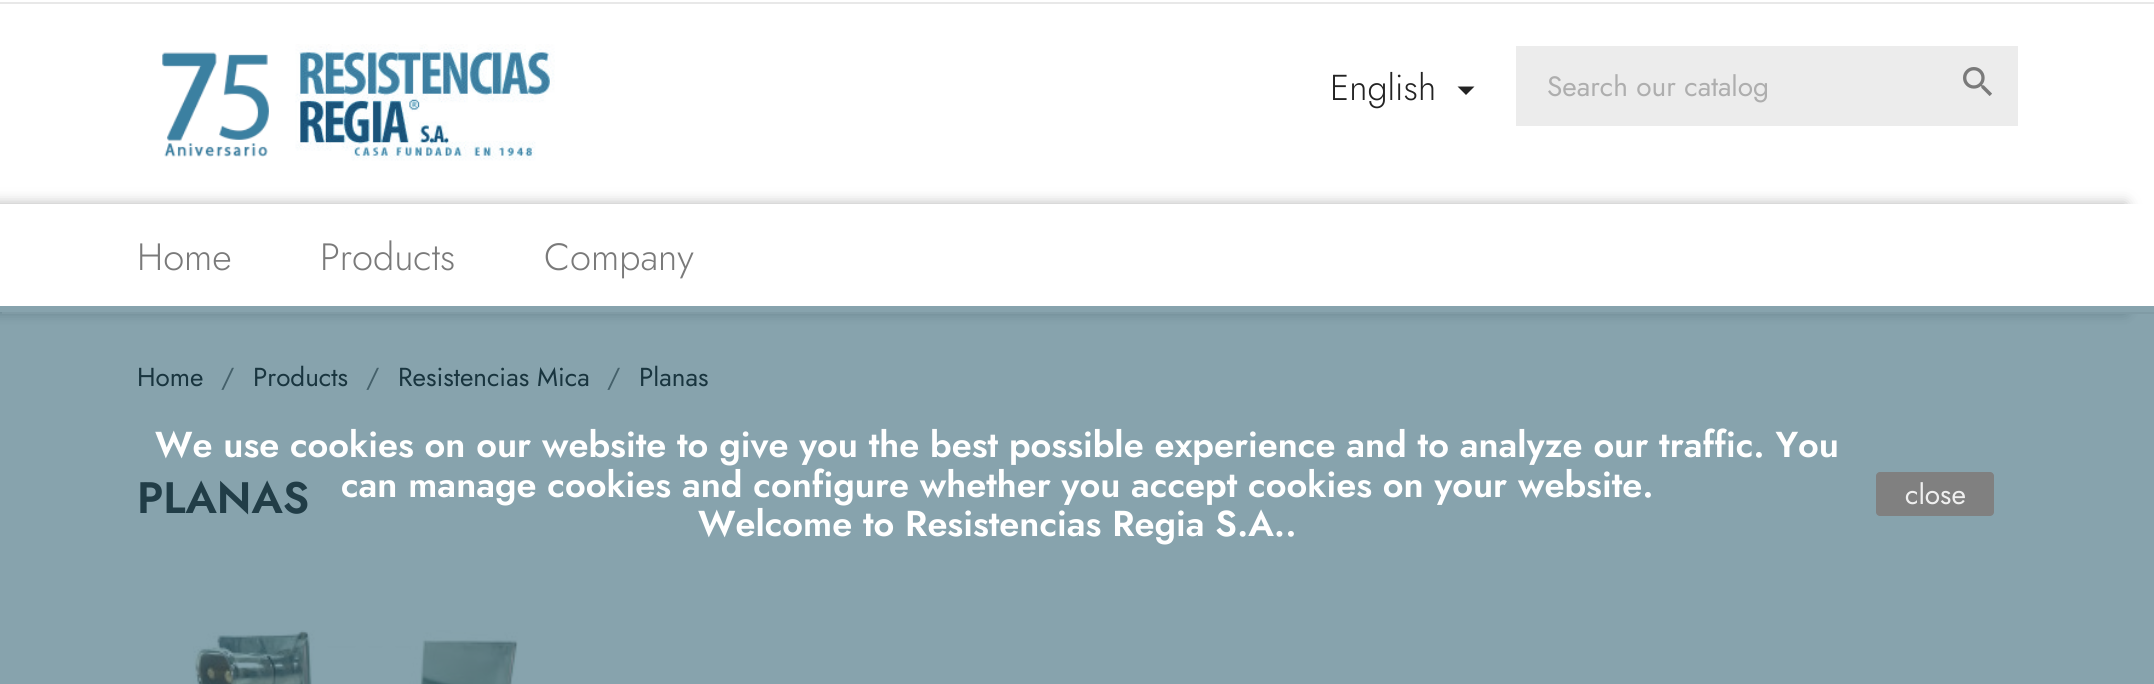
#include <cairo.h>
#include <math.h>
#include <stddef.h>

static cairo_t *ctx;

static void use_color(int r, int g, int b) {
    cairo_set_source_rgb(ctx, r / 255.0, g / 255.0, b / 255.0);
}

static void round_rect(double x, double y, double w, double h, double r) {
    cairo_new_sub_path(ctx);
    cairo_arc(ctx, x + w - r, y + h - r, r, 0, M_PI / 2);
    cairo_arc(ctx, x + r, y + h - r, r, M_PI / 2, M_PI);
    cairo_arc(ctx, x + r, y + r, r, M_PI, 1.5 * M_PI);
    cairo_arc(ctx, x + w - r, y + r, r, 1.5 * M_PI, 2 * M_PI);
    cairo_close_path(ctx);
}

static void shadow(double x, double y, double w, double h, double r, double blur, double alpha) {
    cairo_push_group_with_content(ctx, CAIRO_CONTENT_ALPHA);
    cairo_set_operator(ctx, CAIRO_OPERATOR_SOURCE);
    for (int i = 15; i >= -15 && fmin(w, h) + blur * i / 3 > 0; i -= 2) {
        double e = blur * i / 6;
        cairo_set_source_rgba(ctx, 0, 0, 0, alpha * erfc((i - 1) / 8.5) / 2);
        round_rect(x - e, y - e, w + 2 * e, h + 2 * e, fmax(0, fmin(r + e + blur * .6, fmin(w, h) / 2 + e)));
        cairo_fill(ctx);
    }
    cairo_pattern_t *soft = cairo_pop_group(ctx);
    cairo_mask(ctx, soft);
    cairo_pattern_destroy(soft);
}

static void picture(const char *path, double x, double y, double w, double h) {
    cairo_surface_t *image = cairo_image_surface_create_from_png(path);
    cairo_save(ctx);
    cairo_set_source_surface(ctx, image, x, y);
    cairo_rectangle(ctx, x, y, w, h);
    cairo_fill(ctx);
    cairo_restore(ctx);
    cairo_surface_destroy(image);
}

int main(void) {
    cairo_surface_t *surface = cairo_image_surface_create(CAIRO_FORMAT_RGB24, 2154, 684);
    ctx = cairo_create(surface);
    cairo_font_options_t *options = cairo_font_options_create();
    cairo_font_options_set_hint_metrics(options, CAIRO_HINT_METRICS_OFF);
    cairo_font_options_set_hint_style(options, CAIRO_HINT_STYLE_NONE);
    cairo_set_font_options(ctx, options);
    cairo_set_miter_limit(ctx, 4);
    use_color(255, 255, 255);
    cairo_paint(ctx);
    use_color(232, 232, 232);
    cairo_rectangle(ctx, 0, 2, 2154, 2);
    cairo_fill(ctx);
    picture("img1.png", 162, 44, 393, 117);
    cairo_select_font_face(ctx, "Jost Light", CAIRO_FONT_SLANT_NORMAL, CAIRO_FONT_WEIGHT_NORMAL);
    cairo_set_font_size(ctx, 36);
    use_color(35, 35, 35);
    cairo_move_to(ctx, 1330, 100);
    cairo_show_text(ctx, "English");
    cairo_new_path(ctx);
    cairo_move_to(ctx, 1457.5, 86.5);
    cairo_line_to(ctx, 1474.5, 86.5);
    cairo_line_to(ctx, 1466, 95);
    cairo_close_path(ctx);
    cairo_fill(ctx);
    use_color(236, 236, 236);
    cairo_rectangle(ctx, 1516, 46, 502, 80);
    cairo_fill(ctx);
    cairo_select_font_face(ctx, "Jost", CAIRO_FONT_SLANT_NORMAL, CAIRO_FONT_WEIGHT_NORMAL);
    cairo_set_font_size(ctx, 28);
    use_color(174, 174, 174);
    cairo_move_to(ctx, 1547, 96);
    cairo_show_text(ctx, "Search our catalog");
    picture("img2.png", 1963, 67, 29, 29);
    cairo_save(ctx);
    cairo_set_fill_rule(ctx, CAIRO_FILL_RULE_EVEN_ODD);
    cairo_new_path(ctx);
    cairo_move_to(ctx, 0, 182);
    cairo_line_to(ctx, 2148, 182);
    cairo_line_to(ctx, 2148, 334);
    cairo_line_to(ctx, 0, 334);
    cairo_close_path(ctx);
    cairo_move_to(ctx, 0, 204);
    cairo_line_to(ctx, 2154, 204);
    cairo_line_to(ctx, 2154, 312);
    cairo_line_to(ctx, 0, 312);
    cairo_close_path(ctx);
    cairo_clip(ctx);
    use_color(179, 179, 179);
    shadow(-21, 204, 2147, 108, 0, 7, 1);
    cairo_restore(ctx);
    use_color(240, 239, 239);
    cairo_new_path(ctx);
    cairo_move_to(ctx, 2, 312);
    cairo_line_to(ctx, 2, 314);
    cairo_line_to(ctx, 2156, 314);
    cairo_line_to(ctx, 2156, 206);
    cairo_line_to(ctx, 2154, 206);
    cairo_line_to(ctx, 2154, 312);
    cairo_close_path(ctx);
    cairo_fill(ctx);
    cairo_select_font_face(ctx, "Jost Light", CAIRO_FONT_SLANT_NORMAL, CAIRO_FONT_WEIGHT_NORMAL);
    cairo_set_font_size(ctx, 38);
    use_color(122, 122, 122);
    cairo_move_to(ctx, 137, 270);
    cairo_show_text(ctx, "Home");
    cairo_move_to(ctx, 320, 270);
    cairo_show_text(ctx, "Products");
    cairo_move_to(ctx, 544, 270);
    cairo_show_text(ctx, "Company");
    cairo_select_font_face(ctx, "Jost", CAIRO_FONT_SLANT_NORMAL, CAIRO_FONT_WEIGHT_NORMAL);
    cairo_set_font_size(ctx, 26);
    use_color(35, 35, 35);
    cairo_move_to(ctx, 137, 386);
    cairo_show_text(ctx, "Home");
    use_color(122, 122, 122);
    cairo_move_to(ctx, 221, 386);
    cairo_show_text(ctx, "/");
    use_color(35, 35, 35);
    cairo_move_to(ctx, 253, 386);
    cairo_show_text(ctx, "Products");
    use_color(122, 122, 122);
    cairo_move_to(ctx, 366, 386);
    cairo_show_text(ctx, "/");
    use_color(35, 35, 35);
    cairo_move_to(ctx, 398, 386);
    cairo_show_text(ctx, "Resistencias Mica");
    use_color(122, 122, 122);
    cairo_move_to(ctx, 607, 386);
    cairo_show_text(ctx, "/");
    use_color(35, 35, 35);
    cairo_move_to(ctx, 639, 386);
    cairo_show_text(ctx, "Planas");
    cairo_select_font_face(ctx, "Jost SemiBold", CAIRO_FONT_SLANT_NORMAL, CAIRO_FONT_WEIGHT_NORMAL);
    cairo_set_font_size(ctx, 44);
    use_color(51, 51, 51);
    cairo_move_to(ctx, 137, 513);
    cairo_show_text(ctx, "PLANAS");
    picture("img3.png", 193, 630, 325, 54);
    cairo_set_source_rgba(ctx, 0.063, 0.286, 0.361, 0.5);
    cairo_rectangle(ctx, 0, 306, 2154, 378);
    cairo_fill(ctx);
    cairo_set_font_size(ctx, 36);
    use_color(255, 255, 255);
    cairo_move_to(ctx, 155, 457);
    cairo_show_text(ctx, "We use cookies on our website to give you the best possible experience and to analyze our traffic. You");
    cairo_move_to(ctx, 341, 497);
    cairo_show_text(ctx, "can manage cookies and configure whether you accept cookies on your website.");
    cairo_move_to(ctx, 698, 536);
    cairo_show_text(ctx, "Welcome to Resistencias Regia S.A..");
    use_color(128, 128, 128);
    round_rect(1876, 472, 118, 44, 4);
    cairo_fill(ctx);
    cairo_select_font_face(ctx, "Jost", CAIRO_FONT_SLANT_NORMAL, CAIRO_FONT_WEIGHT_NORMAL);
    cairo_set_font_size(ctx, 28);
    use_color(239, 239, 239);
    cairo_move_to(ctx, 1905, 504);
    cairo_show_text(ctx, "close");
    cairo_surface_write_to_png(surface, "result.png");
    cairo_font_options_destroy(options);
    cairo_destroy(ctx);
    cairo_surface_destroy(surface);
    return 0;
}
